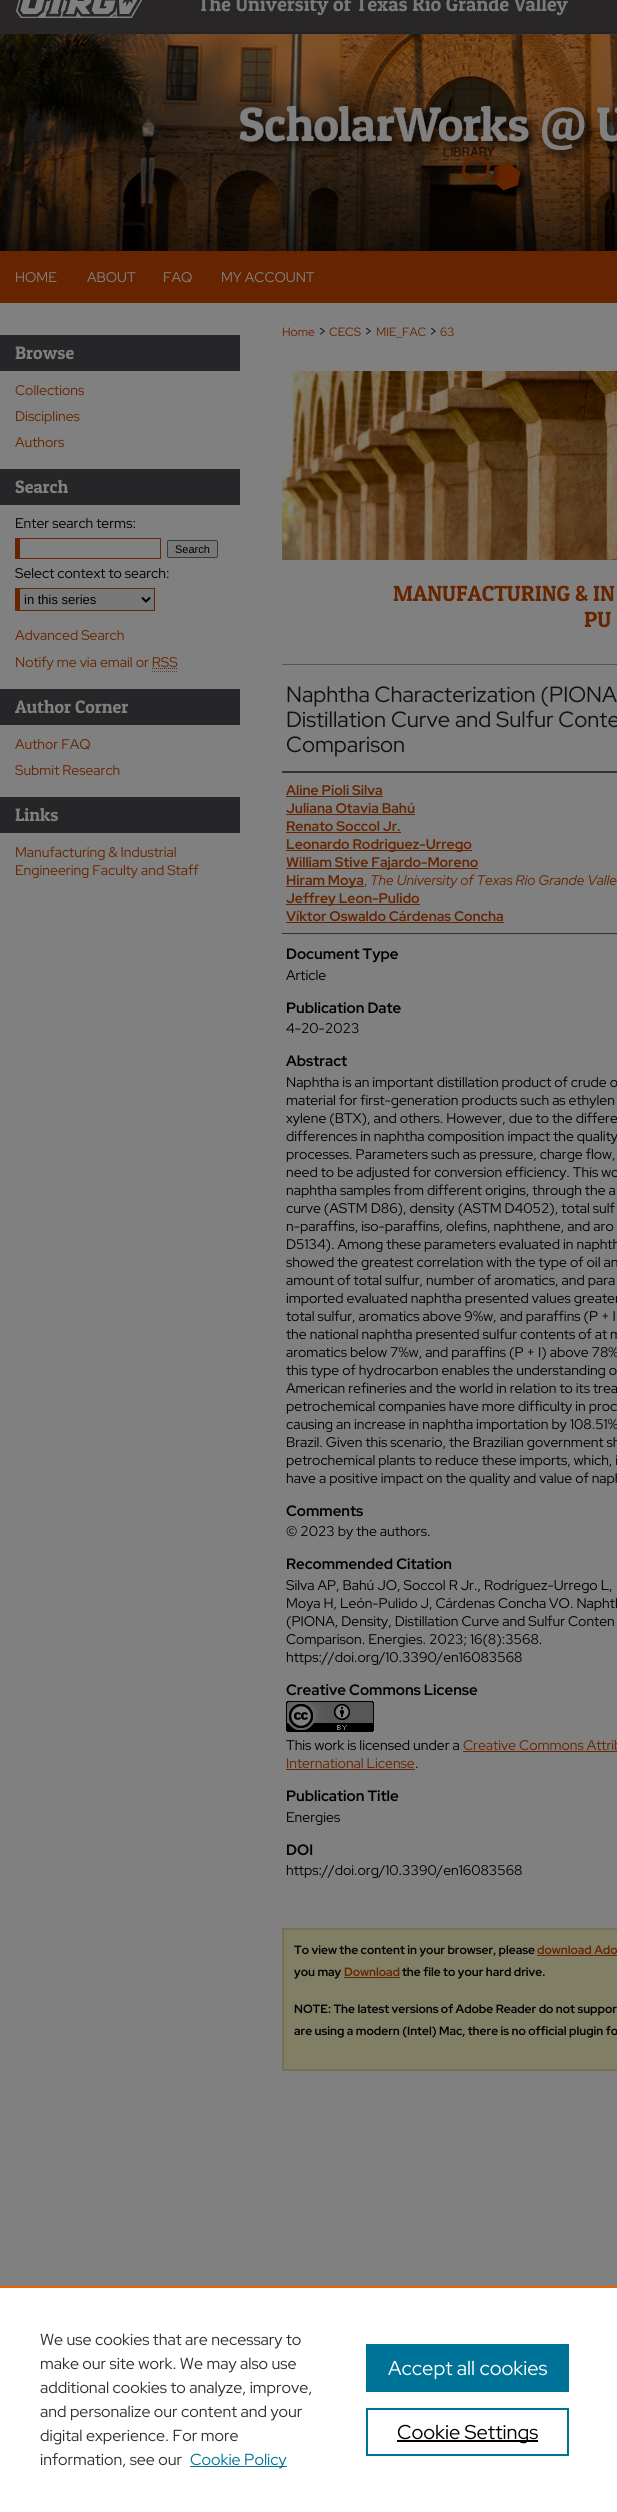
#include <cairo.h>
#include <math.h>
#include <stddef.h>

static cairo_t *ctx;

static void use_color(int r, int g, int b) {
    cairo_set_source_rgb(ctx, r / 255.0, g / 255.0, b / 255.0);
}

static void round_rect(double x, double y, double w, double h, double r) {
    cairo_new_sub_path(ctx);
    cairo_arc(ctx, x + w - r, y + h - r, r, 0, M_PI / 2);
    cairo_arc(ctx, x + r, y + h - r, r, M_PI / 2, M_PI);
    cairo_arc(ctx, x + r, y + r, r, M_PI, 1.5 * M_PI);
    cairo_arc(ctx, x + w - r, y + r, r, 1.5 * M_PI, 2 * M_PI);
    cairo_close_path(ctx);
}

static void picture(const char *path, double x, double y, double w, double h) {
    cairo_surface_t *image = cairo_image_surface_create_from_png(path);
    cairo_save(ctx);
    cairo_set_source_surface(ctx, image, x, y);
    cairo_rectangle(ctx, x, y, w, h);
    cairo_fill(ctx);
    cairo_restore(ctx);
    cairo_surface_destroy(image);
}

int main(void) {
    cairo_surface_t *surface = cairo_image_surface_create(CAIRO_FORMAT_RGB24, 617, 2512);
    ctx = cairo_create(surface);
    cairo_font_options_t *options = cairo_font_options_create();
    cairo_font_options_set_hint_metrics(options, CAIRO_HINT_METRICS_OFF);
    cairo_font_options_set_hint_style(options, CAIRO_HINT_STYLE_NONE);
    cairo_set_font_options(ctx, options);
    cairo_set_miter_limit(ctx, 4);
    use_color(128, 128, 128);
    cairo_paint(ctx);
    picture("img1.png", 0, 0, 617, 303);
    picture("img2.png", 16, 0, 552, 18);
    picture("img3.png", 240, 106, 377, 95);
    cairo_select_font_face(ctx, "Red Hat Display", CAIRO_FONT_SLANT_NORMAL, CAIRO_FONT_WEIGHT_NORMAL);
    cairo_set_font_size(ctx, 14);
    use_color(128, 128, 128);
    cairo_move_to(ctx, 15, 282);
    cairo_show_text(ctx, "HOME");
    cairo_move_to(ctx, 87, 282);
    cairo_show_text(ctx, "ABOUT");
    cairo_move_to(ctx, 163, 282);
    cairo_show_text(ctx, "FAQ");
    cairo_move_to(ctx, 221, 282);
    cairo_show_text(ctx, "MY ACCOUNT");
    use_color(38, 37, 40);
    cairo_rectangle(ctx, 0, 335, 240, 36);
    cairo_fill(ctx);
    cairo_select_font_face(ctx, "Patua One", CAIRO_FONT_SLANT_NORMAL, CAIRO_FONT_WEIGHT_NORMAL);
    cairo_set_font_size(ctx, 18);
    use_color(128, 128, 128);
    cairo_move_to(ctx, 15, 359);
    cairo_show_text(ctx, "Browse");
    cairo_select_font_face(ctx, "Red Hat Display", CAIRO_FONT_SLANT_NORMAL, CAIRO_FONT_WEIGHT_NORMAL);
    cairo_set_font_size(ctx, 14);
    use_color(102, 37, 0);
    cairo_move_to(ctx, 15, 395);
    cairo_show_text(ctx, "Collections");
    cairo_move_to(ctx, 15, 421);
    cairo_show_text(ctx, "Disciplines");
    cairo_move_to(ctx, 15, 447);
    cairo_show_text(ctx, "Authors");
    use_color(38, 37, 40);
    cairo_rectangle(ctx, 0, 469, 240, 36);
    cairo_fill(ctx);
    cairo_select_font_face(ctx, "Patua One", CAIRO_FONT_SLANT_NORMAL, CAIRO_FONT_WEIGHT_NORMAL);
    cairo_set_font_size(ctx, 18);
    use_color(128, 128, 128);
    cairo_move_to(ctx, 15, 493);
    cairo_show_text(ctx, "Search");
    cairo_select_font_face(ctx, "Red Hat Display", CAIRO_FONT_SLANT_NORMAL, CAIRO_FONT_WEIGHT_NORMAL);
    cairo_set_font_size(ctx, 14);
    use_color(0, 0, 0);
    cairo_move_to(ctx, 15, 528);
    cairo_show_text(ctx, "Enter search terms:");
    use_color(102, 37, 0);
    cairo_rectangle(ctx, 15, 538, 146, 1);
    cairo_fill(ctx);
    cairo_rectangle(ctx, 160, 538, 1, 21);
    cairo_fill(ctx);
    cairo_rectangle(ctx, 15, 558, 146, 1);
    cairo_fill(ctx);
    cairo_rectangle(ctx, 15, 538, 5, 21);
    cairo_fill(ctx);
    use_color(120, 120, 120);
    round_rect(167.5, 540.5, 50, 17, 1.5);
    cairo_fill_preserve(ctx);
    use_color(59, 59, 59);
    cairo_set_line_width(ctx, 1);
    cairo_stroke(ctx);
    cairo_select_font_face(ctx, "Liberation Sans", CAIRO_FONT_SLANT_NORMAL, CAIRO_FONT_WEIGHT_NORMAL);
    cairo_set_font_size(ctx, 11);
    use_color(0, 0, 0);
    cairo_move_to(ctx, 175, 553);
    cairo_show_text(ctx, "Search");
    cairo_select_font_face(ctx, "Red Hat Display", CAIRO_FONT_SLANT_NORMAL, CAIRO_FONT_WEIGHT_NORMAL);
    cairo_set_font_size(ctx, 14);
    cairo_move_to(ctx, 15, 578);
    cairo_show_text(ctx, "Select context to search:");
    use_color(120, 120, 120);
    cairo_rectangle(ctx, 20, 589, 134, 21);
    cairo_fill(ctx);
    use_color(102, 37, 0);
    cairo_rectangle(ctx, 15, 588, 140, 1);
    cairo_fill(ctx);
    cairo_rectangle(ctx, 154, 588, 1, 23);
    cairo_fill(ctx);
    cairo_rectangle(ctx, 15, 610, 140, 1);
    cairo_fill(ctx);
    cairo_rectangle(ctx, 15, 588, 5, 23);
    cairo_fill(ctx);
    cairo_new_path(ctx);
    cairo_move_to(ctx, 142, 597.5);
    cairo_line_to(ctx, 146, 601.5);
    cairo_line_to(ctx, 150, 597.5);
    use_color(0, 0, 0);
    cairo_set_line_width(ctx, 2);
    cairo_stroke(ctx);
    cairo_select_font_face(ctx, "Liberation Sans", CAIRO_FONT_SLANT_NORMAL, CAIRO_FONT_WEIGHT_NORMAL);
    cairo_set_font_size(ctx, 13);
    cairo_move_to(ctx, 24, 604);
    cairo_show_text(ctx, "in this series");
    cairo_select_font_face(ctx, "Red Hat Display", CAIRO_FONT_SLANT_NORMAL, CAIRO_FONT_WEIGHT_NORMAL);
    cairo_set_font_size(ctx, 14);
    use_color(102, 37, 0);
    cairo_move_to(ctx, 15, 640);
    cairo_show_text(ctx, "Advanced Search");
    cairo_move_to(ctx, 15, 667);
    cairo_show_text(ctx, "Notify me via email or RSS");
    cairo_new_path(ctx);
    cairo_move_to(ctx, 152, 668.5);
    cairo_line_to(ctx, 177.5, 668.5);
    cairo_set_line_width(ctx, 1);
    cairo_set_dash(ctx, (double[]){1, 1}, 2, 0);
    cairo_stroke(ctx);
    cairo_new_path(ctx);
    cairo_move_to(ctx, 152, 671.5);
    cairo_line_to(ctx, 178, 671.5);
    use_color(77, 77, 77);
    cairo_stroke(ctx);
    use_color(38, 37, 40);
    cairo_rectangle(ctx, 0, 689, 240, 36);
    cairo_fill(ctx);
    cairo_select_font_face(ctx, "Patua One", CAIRO_FONT_SLANT_NORMAL, CAIRO_FONT_WEIGHT_NORMAL);
    cairo_set_font_size(ctx, 18);
    use_color(128, 128, 128);
    cairo_move_to(ctx, 15, 713);
    cairo_show_text(ctx, "Author Corner");
    cairo_select_font_face(ctx, "Red Hat Display", CAIRO_FONT_SLANT_NORMAL, CAIRO_FONT_WEIGHT_NORMAL);
    cairo_set_font_size(ctx, 14);
    use_color(102, 37, 0);
    cairo_move_to(ctx, 15, 749);
    cairo_show_text(ctx, "Author FAQ");
    cairo_move_to(ctx, 15, 775);
    cairo_show_text(ctx, "Submit Research");
    use_color(38, 37, 40);
    cairo_rectangle(ctx, 0, 797, 240, 36);
    cairo_fill(ctx);
    cairo_select_font_face(ctx, "Patua One", CAIRO_FONT_SLANT_NORMAL, CAIRO_FONT_WEIGHT_NORMAL);
    cairo_set_font_size(ctx, 18);
    use_color(128, 128, 128);
    cairo_move_to(ctx, 15, 821);
    cairo_show_text(ctx, "Links");
    cairo_select_font_face(ctx, "Red Hat Display", CAIRO_FONT_SLANT_NORMAL, CAIRO_FONT_WEIGHT_NORMAL);
    cairo_set_font_size(ctx, 14);
    use_color(102, 37, 0);
    cairo_move_to(ctx, 15, 857);
    cairo_show_text(ctx, "Manufacturing & Industrial");
    cairo_move_to(ctx, 15, 875);
    cairo_show_text(ctx, "Engineering Faculty and Staff");
    cairo_set_font_size(ctx, 12);
    cairo_move_to(ctx, 282, 336);
    cairo_show_text(ctx, "Home");
    cairo_set_font_size(ctx, 14);
    use_color(0, 0, 0);
    cairo_move_to(ctx, 318, 336);
    cairo_show_text(ctx, ">");
    cairo_set_font_size(ctx, 12);
    use_color(102, 37, 0);
    cairo_move_to(ctx, 329, 336);
    cairo_show_text(ctx, "CECS");
    cairo_set_font_size(ctx, 14);
    use_color(0, 0, 0);
    cairo_move_to(ctx, 364, 336);
    cairo_show_text(ctx, ">");
    cairo_set_font_size(ctx, 12);
    use_color(102, 37, 0);
    cairo_move_to(ctx, 376, 336);
    cairo_show_text(ctx, "MIE_FAC");
    cairo_set_font_size(ctx, 14);
    use_color(0, 0, 0);
    cairo_move_to(ctx, 429, 336);
    cairo_show_text(ctx, ">");
    cairo_set_font_size(ctx, 12);
    use_color(102, 37, 0);
    cairo_move_to(ctx, 440, 336);
    cairo_show_text(ctx, "63");
    picture("img4.png", 282, 371, 335, 189);
    cairo_select_font_face(ctx, "Patua One", CAIRO_FONT_SLANT_NORMAL, CAIRO_FONT_WEIGHT_NORMAL);
    cairo_set_font_size(ctx, 22);
    cairo_move_to(ctx, 393, 601);
    cairo_show_text(ctx, "MANUFACTURING & IN");
    cairo_move_to(ctx, 584, 627);
    cairo_show_text(ctx, "PU");
    use_color(85, 85, 85);
    cairo_rectangle(ctx, 282, 664, 335, 1);
    cairo_fill(ctx);
    cairo_select_font_face(ctx, "Red Hat Display", CAIRO_FONT_SLANT_NORMAL, CAIRO_FONT_WEIGHT_NORMAL);
    use_color(17, 17, 17);
    cairo_move_to(ctx, 286, 702);
    cairo_show_text(ctx, "Naphtha Characterization (PIONA");
    cairo_move_to(ctx, 286, 727);
    cairo_show_text(ctx, "Distillation Curve and Sulfur Conte");
    cairo_move_to(ctx, 286, 752);
    cairo_show_text(ctx, "Comparison");
    use_color(51, 51, 51);
    cairo_rectangle(ctx, 282, 771, 335, 2);
    cairo_fill(ctx);
    cairo_rectangle(ctx, 282, 933, 335, 1);
    cairo_fill(ctx);
    cairo_select_font_face(ctx, "Red Hat Display", CAIRO_FONT_SLANT_NORMAL, CAIRO_FONT_WEIGHT_BOLD);
    cairo_set_font_size(ctx, 14);
    use_color(102, 37, 0);
    cairo_move_to(ctx, 286, 795);
    cairo_show_text(ctx, "Aline Pioli Silva");
    cairo_rectangle(ctx, 286, 796, 97, 1);
    cairo_fill(ctx);
    cairo_move_to(ctx, 286, 813);
    cairo_show_text(ctx, "Juliana Otavia Bahú");
    cairo_rectangle(ctx, 286, 814, 129, 1);
    cairo_fill(ctx);
    cairo_move_to(ctx, 286, 831);
    cairo_show_text(ctx, "Renato Soccol Jr.");
    cairo_rectangle(ctx, 286, 832, 115, 1);
    cairo_fill(ctx);
    cairo_rectangle(ctx, 286, 850, 186, 1);
    cairo_fill(ctx);
    cairo_move_to(ctx, 286, 849);
    cairo_show_text(ctx, "Leonardo Rodriguez-Urrego");
    cairo_rectangle(ctx, 286, 868, 192, 1);
    cairo_fill(ctx);
    cairo_move_to(ctx, 286, 867);
    cairo_show_text(ctx, "William Stive Fajardo-Moreno");
    cairo_rectangle(ctx, 286, 886, 78, 1);
    cairo_fill(ctx);
    cairo_move_to(ctx, 286, 885);
    cairo_show_text(ctx, "Hiram Moya");
    cairo_select_font_face(ctx, "Red Hat Display", CAIRO_FONT_SLANT_NORMAL, CAIRO_FONT_WEIGHT_NORMAL);
    cairo_move_to(ctx, 364, 885);
    cairo_show_text(ctx, ",");
    cairo_select_font_face(ctx, "Red Hat Display", CAIRO_FONT_SLANT_ITALIC, CAIRO_FONT_WEIGHT_NORMAL);
    cairo_move_to(ctx, 370, 885);
    cairo_show_text(ctx, "The University of Texas Rio Grande Valle");
    cairo_rectangle(ctx, 286, 904, 134, 1);
    cairo_fill(ctx);
    cairo_select_font_face(ctx, "Red Hat Display", CAIRO_FONT_SLANT_NORMAL, CAIRO_FONT_WEIGHT_BOLD);
    cairo_move_to(ctx, 286, 903);
    cairo_show_text(ctx, "Jeffrey Leon-Pulido");
    cairo_move_to(ctx, 286, 921);
    cairo_show_text(ctx, "Víktor Oswaldo Cárdenas Concha");
    cairo_rectangle(ctx, 286, 922, 218, 1);
    cairo_fill(ctx);
    cairo_set_font_size(ctx, 15);
    use_color(0, 0, 0);
    cairo_move_to(ctx, 286, 959);
    cairo_show_text(ctx, "Document Type");
    cairo_select_font_face(ctx, "Red Hat Display", CAIRO_FONT_SLANT_NORMAL, CAIRO_FONT_WEIGHT_NORMAL);
    cairo_set_font_size(ctx, 14);
    cairo_move_to(ctx, 286, 980);
    cairo_show_text(ctx, "Article");
    cairo_select_font_face(ctx, "Red Hat Display", CAIRO_FONT_SLANT_NORMAL, CAIRO_FONT_WEIGHT_BOLD);
    cairo_set_font_size(ctx, 15);
    cairo_move_to(ctx, 286, 1013);
    cairo_show_text(ctx, "Publication Date");
    cairo_select_font_face(ctx, "Red Hat Display", CAIRO_FONT_SLANT_NORMAL, CAIRO_FONT_WEIGHT_NORMAL);
    cairo_set_font_size(ctx, 14);
    cairo_move_to(ctx, 286, 1033);
    cairo_show_text(ctx, "4-20-2023");
    cairo_select_font_face(ctx, "Red Hat Display", CAIRO_FONT_SLANT_NORMAL, CAIRO_FONT_WEIGHT_BOLD);
    cairo_set_font_size(ctx, 15);
    cairo_move_to(ctx, 286, 1066);
    cairo_show_text(ctx, "Abstract");
    cairo_select_font_face(ctx, "Red Hat Display", CAIRO_FONT_SLANT_NORMAL, CAIRO_FONT_WEIGHT_NORMAL);
    cairo_set_font_size(ctx, 14);
    cairo_move_to(ctx, 286, 1087);
    cairo_show_text(ctx, "Naphtha is an important distillation product of crude o");
    cairo_move_to(ctx, 286, 1105);
    cairo_show_text(ctx, "material for first-generation products such as ethylen");
    cairo_move_to(ctx, 286, 1123);
    cairo_show_text(ctx, "xylene (BTX), and others. However, due to the differe");
    cairo_move_to(ctx, 286, 1141);
    cairo_show_text(ctx, "differences in naphtha composition impact the quality");
    cairo_move_to(ctx, 286, 1159);
    cairo_show_text(ctx, "processes. Parameters such as pressure, charge flow,");
    cairo_move_to(ctx, 286, 1177);
    cairo_show_text(ctx, "need to be adjusted for conversion efficiency. This wo");
    cairo_move_to(ctx, 286, 1195);
    cairo_show_text(ctx, "naphtha samples from different origins, through the a");
    cairo_move_to(ctx, 286, 1213);
    cairo_show_text(ctx, "curve (ASTM D86), density (ASTM D4052), total sulf");
    cairo_move_to(ctx, 286, 1231);
    cairo_show_text(ctx, "n-paraffins, iso-paraffins, olefins, naphthene, and aro");
    cairo_move_to(ctx, 286, 1249);
    cairo_show_text(ctx, "D5134). Among these parameters evaluated in naphth");
    cairo_move_to(ctx, 286, 1267);
    cairo_show_text(ctx, "showed the greatest correlation with the type of oil an");
    cairo_move_to(ctx, 286, 1285);
    cairo_show_text(ctx, "amount of total sulfur, number of aromatics, and para");
    cairo_move_to(ctx, 286, 1303);
    cairo_show_text(ctx, "imported evaluated naphtha presented values greater");
    cairo_move_to(ctx, 286, 1321);
    cairo_show_text(ctx, "total sulfur, aromatics above 9%w, and paraffins (P + I");
    cairo_move_to(ctx, 286, 1339);
    cairo_show_text(ctx, "the national naphtha presented sulfur contents of at m");
    cairo_move_to(ctx, 286, 1357);
    cairo_show_text(ctx, "aromatics below 7%w, and paraffins (P + I) above 78%");
    cairo_move_to(ctx, 286, 1375);
    cairo_show_text(ctx, "this type of hydrocarbon enables the understanding o");
    cairo_move_to(ctx, 286, 1393);
    cairo_show_text(ctx, "American refineries and the world in relation to its trea");
    cairo_move_to(ctx, 286, 1411);
    cairo_show_text(ctx, "petrochemical companies have more difficulty in proc");
    cairo_move_to(ctx, 286, 1429);
    cairo_show_text(ctx, "causing an increase in naphtha importation by 108.51%");
    cairo_move_to(ctx, 286, 1447);
    cairo_show_text(ctx, "Brazil. Given this scenario, the Brazilian government sh");
    cairo_move_to(ctx, 286, 1465);
    cairo_show_text(ctx, "petrochemical plants to reduce these imports, which, i");
    cairo_move_to(ctx, 286, 1483);
    cairo_show_text(ctx, "have a positive impact on the quality and value of naph");
    cairo_select_font_face(ctx, "Red Hat Display", CAIRO_FONT_SLANT_NORMAL, CAIRO_FONT_WEIGHT_BOLD);
    cairo_set_font_size(ctx, 15);
    cairo_move_to(ctx, 286, 1516);
    cairo_show_text(ctx, "Comments");
    cairo_select_font_face(ctx, "Red Hat Display", CAIRO_FONT_SLANT_NORMAL, CAIRO_FONT_WEIGHT_NORMAL);
    cairo_set_font_size(ctx, 14);
    cairo_move_to(ctx, 286, 1536);
    cairo_show_text(ctx, "© 2023 by the authors.");
    cairo_select_font_face(ctx, "Red Hat Display", CAIRO_FONT_SLANT_NORMAL, CAIRO_FONT_WEIGHT_BOLD);
    cairo_set_font_size(ctx, 15);
    cairo_move_to(ctx, 286, 1569);
    cairo_show_text(ctx, "Recommended Citation");
    cairo_select_font_face(ctx, "Red Hat Display", CAIRO_FONT_SLANT_NORMAL, CAIRO_FONT_WEIGHT_NORMAL);
    cairo_set_font_size(ctx, 14);
    cairo_move_to(ctx, 286, 1590);
    cairo_show_text(ctx, "Silva AP, Bahú JO, Soccol R Jr., Rodríguez-Urrego L,");
    cairo_move_to(ctx, 286, 1608);
    cairo_show_text(ctx, "Moya H, León-Pulido J, Cárdenas Concha VO. Naphth");
    cairo_move_to(ctx, 286, 1626);
    cairo_show_text(ctx, "(PIONA, Density, Distillation Curve and Sulfur Conten");
    cairo_move_to(ctx, 286, 1644);
    cairo_show_text(ctx, "Comparison. Energies. 2023; 16(8):3568.");
    cairo_move_to(ctx, 286, 1662);
    cairo_show_text(ctx, "https://doi.org/10.3390/en16083568");
    cairo_select_font_face(ctx, "Red Hat Display", CAIRO_FONT_SLANT_NORMAL, CAIRO_FONT_WEIGHT_BOLD);
    cairo_set_font_size(ctx, 15);
    cairo_move_to(ctx, 286, 1695);
    cairo_show_text(ctx, "Creative Commons License");
    picture("img5.png", 286, 1701, 88, 31);
    cairo_select_font_face(ctx, "Red Hat Display", CAIRO_FONT_SLANT_NORMAL, CAIRO_FONT_WEIGHT_NORMAL);
    cairo_set_font_size(ctx, 14);
    cairo_move_to(ctx, 286, 1750);
    cairo_show_text(ctx, "This work is licensed under a");
    use_color(102, 37, 0);
    cairo_move_to(ctx, 463, 1750);
    cairo_show_text(ctx, "Creative Commons Attrib");
    cairo_rectangle(ctx, 463, 1751, 154, 1);
    cairo_fill(ctx);
    cairo_move_to(ctx, 286, 1768);
    cairo_show_text(ctx, "International License");
    cairo_rectangle(ctx, 286, 1769, 129, 1);
    cairo_fill(ctx);
    use_color(0, 0, 0);
    cairo_move_to(ctx, 415, 1768);
    cairo_show_text(ctx, ".");
    cairo_select_font_face(ctx, "Red Hat Display", CAIRO_FONT_SLANT_NORMAL, CAIRO_FONT_WEIGHT_BOLD);
    cairo_set_font_size(ctx, 15);
    cairo_move_to(ctx, 286, 1801);
    cairo_show_text(ctx, "Publication Title");
    cairo_select_font_face(ctx, "Red Hat Display", CAIRO_FONT_SLANT_NORMAL, CAIRO_FONT_WEIGHT_NORMAL);
    cairo_set_font_size(ctx, 14);
    cairo_move_to(ctx, 286, 1822);
    cairo_show_text(ctx, "Energies");
    cairo_select_font_face(ctx, "Red Hat Display", CAIRO_FONT_SLANT_NORMAL, CAIRO_FONT_WEIGHT_BOLD);
    cairo_set_font_size(ctx, 15);
    cairo_move_to(ctx, 286, 1855);
    cairo_show_text(ctx, "DOI");
    cairo_select_font_face(ctx, "Red Hat Display", CAIRO_FONT_SLANT_NORMAL, CAIRO_FONT_WEIGHT_NORMAL);
    cairo_set_font_size(ctx, 14);
    cairo_move_to(ctx, 286, 1875);
    cairo_show_text(ctx, "https://doi.org/10.3390/en16083568");
    use_color(128, 126, 101);
    cairo_rectangle(ctx, 283, 1929, 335, 141);
    cairo_fill_preserve(ctx);
    use_color(120, 110, 81);
    cairo_set_line_width(ctx, 2);
    cairo_set_dash(ctx, NULL, 0, 0);
    cairo_stroke(ctx);
    cairo_select_font_face(ctx, "Red Hat Display", CAIRO_FONT_SLANT_NORMAL, CAIRO_FONT_WEIGHT_BOLD);
    cairo_set_font_size(ctx, 12);
    use_color(0, 0, 0);
    cairo_move_to(ctx, 294, 1954);
    cairo_show_text(ctx, "To view the content in your browser, please");
    use_color(102, 37, 0);
    cairo_move_to(ctx, 537, 1954);
    cairo_show_text(ctx, "download Ado");
    cairo_rectangle(ctx, 537, 1955, 80, 1);
    cairo_fill(ctx);
    use_color(0, 0, 0);
    cairo_move_to(ctx, 294, 1976);
    cairo_show_text(ctx, "you may");
    use_color(102, 37, 0);
    cairo_move_to(ctx, 344, 1976);
    cairo_show_text(ctx, "Download");
    cairo_rectangle(ctx, 344, 1977, 56, 1);
    cairo_fill(ctx);
    use_color(0, 0, 0);
    cairo_move_to(ctx, 402, 1976);
    cairo_show_text(ctx, "the file to your hard drive.");
    cairo_move_to(ctx, 294, 2013);
    cairo_show_text(ctx, "NOTE: The latest versions of Adobe Reader do not suppor");
    cairo_move_to(ctx, 294, 2035);
    cairo_show_text(ctx, "are using a modern (Intel) Mac, there is no official plugin fo");
    use_color(255, 255, 255);
    cairo_rectangle(ctx, 0, 2288, 617, 224);
    cairo_fill(ctx);
    use_color(235, 101, 0);
    cairo_rectangle(ctx, 0, 2286, 617, 2);
    cairo_fill(ctx);
    cairo_select_font_face(ctx, "Red Hat Display", CAIRO_FONT_SLANT_NORMAL, CAIRO_FONT_WEIGHT_NORMAL);
    cairo_set_font_size(ctx, 16);
    use_color(46, 46, 46);
    cairo_move_to(ctx, 40, 2345);
    cairo_show_text(ctx, "We use cookies that are necessary to");
    cairo_move_to(ctx, 40, 2369);
    cairo_show_text(ctx, "make our site work. We may also use");
    cairo_move_to(ctx, 40, 2393);
    cairo_show_text(ctx, "additional cookies to analyze, improve,");
    cairo_move_to(ctx, 40, 2417);
    cairo_show_text(ctx, "and personalize our content and your");
    cairo_move_to(ctx, 40, 2441);
    cairo_show_text(ctx, "digital experience. For more");
    cairo_move_to(ctx, 40, 2465);
    cairo_show_text(ctx, "information, see our");
    use_color(0, 115, 152);
    cairo_rectangle(ctx, 190, 2466, 97, 1);
    cairo_fill(ctx);
    cairo_move_to(ctx, 190, 2465);
    cairo_show_text(ctx, "Cookie Policy");
    cairo_rectangle(ctx, 366, 2344, 203, 48);
    cairo_fill(ctx);
    cairo_set_font_size(ctx, 20);
    use_color(255, 255, 255);
    cairo_move_to(ctx, 388, 2375);
    cairo_show_text(ctx, "Accept all cookies");
    cairo_rectangle(ctx, 367, 2409, 201, 46);
    use_color(0, 115, 152);
    cairo_stroke(ctx);
    use_color(0, 0, 0);
    cairo_rectangle(ctx, 397, 2440, 141, 2);
    cairo_fill(ctx);
    cairo_move_to(ctx, 397, 2439);
    cairo_show_text(ctx, "Cookie Settings");
    cairo_surface_write_to_png(surface, "result.png");
    cairo_font_options_destroy(options);
    cairo_destroy(ctx);
    cairo_surface_destroy(surface);
    return 0;
}
